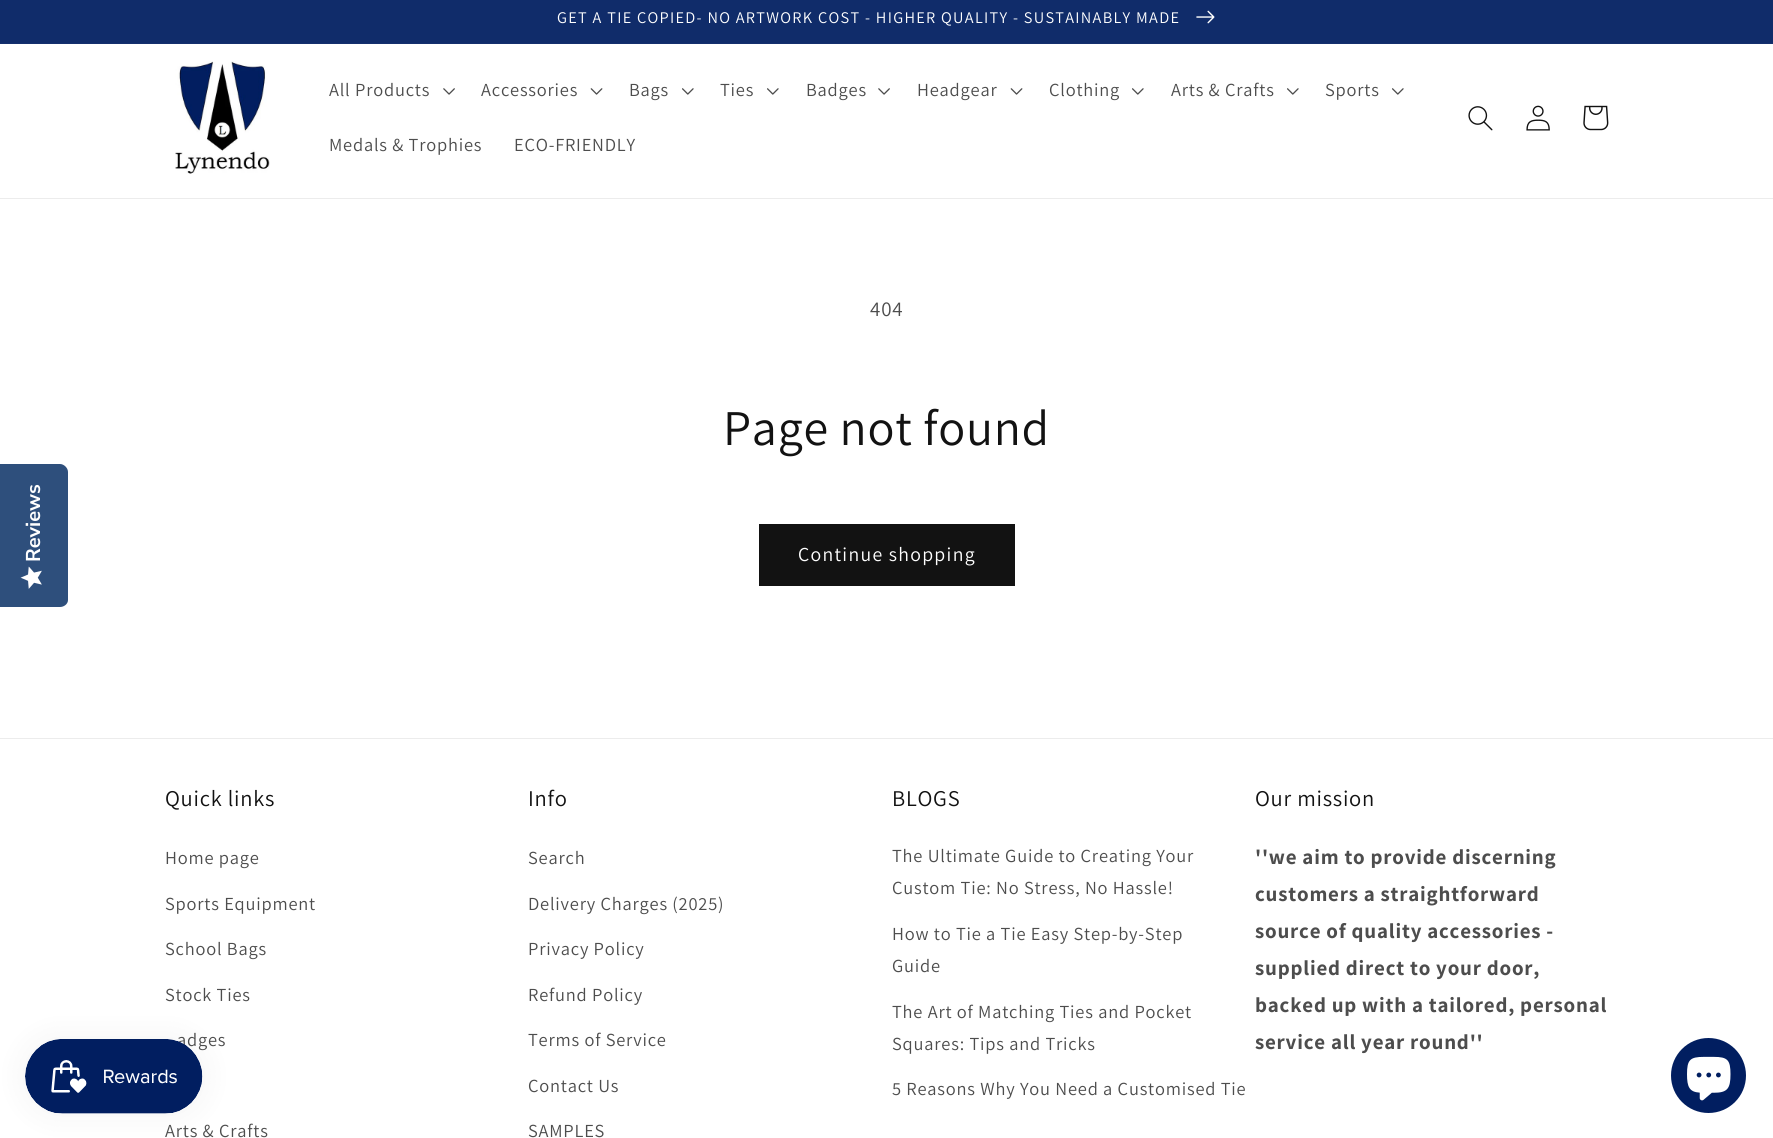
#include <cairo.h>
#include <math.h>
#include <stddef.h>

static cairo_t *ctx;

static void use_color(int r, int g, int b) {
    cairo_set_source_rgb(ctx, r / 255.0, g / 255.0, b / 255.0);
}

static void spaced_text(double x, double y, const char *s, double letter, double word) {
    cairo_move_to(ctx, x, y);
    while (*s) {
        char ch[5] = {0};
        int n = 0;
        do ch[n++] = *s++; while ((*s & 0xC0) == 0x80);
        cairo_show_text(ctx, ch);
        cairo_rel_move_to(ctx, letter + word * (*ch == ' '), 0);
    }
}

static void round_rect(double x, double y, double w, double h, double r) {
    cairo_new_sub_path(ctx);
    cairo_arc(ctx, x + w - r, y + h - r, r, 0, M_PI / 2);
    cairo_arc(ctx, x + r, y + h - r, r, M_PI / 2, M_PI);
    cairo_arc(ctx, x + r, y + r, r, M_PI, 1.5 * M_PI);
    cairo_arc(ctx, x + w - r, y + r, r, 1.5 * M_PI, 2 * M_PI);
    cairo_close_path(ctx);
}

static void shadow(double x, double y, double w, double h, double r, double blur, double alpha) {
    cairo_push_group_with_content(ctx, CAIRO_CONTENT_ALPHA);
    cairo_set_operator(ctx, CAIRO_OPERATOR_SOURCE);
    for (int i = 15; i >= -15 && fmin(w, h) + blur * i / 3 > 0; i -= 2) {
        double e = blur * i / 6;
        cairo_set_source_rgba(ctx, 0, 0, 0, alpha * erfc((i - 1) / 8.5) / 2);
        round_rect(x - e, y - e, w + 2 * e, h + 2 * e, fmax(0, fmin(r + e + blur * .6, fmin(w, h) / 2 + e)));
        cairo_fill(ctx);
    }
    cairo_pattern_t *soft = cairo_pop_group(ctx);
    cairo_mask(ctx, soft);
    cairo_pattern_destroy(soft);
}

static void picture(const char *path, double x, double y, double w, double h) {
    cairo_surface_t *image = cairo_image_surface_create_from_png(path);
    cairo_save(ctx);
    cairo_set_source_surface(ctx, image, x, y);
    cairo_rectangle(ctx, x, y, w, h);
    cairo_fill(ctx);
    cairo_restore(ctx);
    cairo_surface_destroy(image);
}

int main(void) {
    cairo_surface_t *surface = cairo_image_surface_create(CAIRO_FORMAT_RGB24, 1773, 1138);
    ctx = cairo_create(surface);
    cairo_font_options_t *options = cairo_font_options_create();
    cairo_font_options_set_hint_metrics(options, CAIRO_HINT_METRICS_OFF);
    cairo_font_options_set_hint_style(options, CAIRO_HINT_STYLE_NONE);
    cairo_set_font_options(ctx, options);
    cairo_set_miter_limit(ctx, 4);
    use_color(255, 255, 255);
    cairo_paint(ctx);
    use_color(21, 48, 109);
    cairo_rectangle(ctx, 0, 43, 1773, 1);
    cairo_fill(ctx);
    use_color(16, 44, 106);
    cairo_rectangle(ctx, 0, 0, 1773, 43);
    cairo_fill(ctx);
    cairo_select_font_face(ctx, "Assistant", CAIRO_FONT_SLANT_NORMAL, CAIRO_FONT_WEIGHT_NORMAL);
    cairo_set_font_size(ctx, 16.25);
    use_color(255, 255, 255);
    spaced_text(557, 23, "GET A TIE COPIED- NO ARTWORK COST - HIGHER QUALITY - SUSTAINABLY MADE", 1.3, 0);
    picture("img1.png", 1196, 10, 19, 14);
    use_color(236, 236, 236);
    cairo_rectangle(ctx, 0, 198, 1773, 1);
    cairo_fill(ctx);
    picture("img2.png", 175, 61, 95, 113);
    cairo_set_font_size(ctx, 18.4);
    use_color(77, 77, 77);
    spaced_text(329, 96, "All Products", 0.8, 0);
    picture("img3.png", 443, 88, 12, 7);
    spaced_text(481, 96, "Accessories", 0.8, 0);
    picture("img4.png", 590, 88, 13, 7);
    spaced_text(629, 96, "Bags", 0.8, 0);
    picture("img5.png", 682, 88, 12, 7);
    spaced_text(720, 96, "Ties", 0.8, 0);
    picture("img5.png", 767, 88, 12, 7);
    spaced_text(806, 96, "Badges", 0.8, 0);
    picture("img3.png", 878, 88, 12, 7);
    spaced_text(917, 96, "Headgear", 0.8, 0);
    picture("img4.png", 1010, 88, 13, 7);
    spaced_text(1049, 96, "Clothing", 0.8, 0);
    picture("img5.png", 1132, 88, 12, 7);
    spaced_text(1171, 96, "Arts & Crafts", 0.8, 0);
    picture("img5.png", 1287, 88, 12, 7);
    spaced_text(1325, 96, "Sports", 0.8, 0);
    picture("img5.png", 1392, 88, 12, 7);
    spaced_text(329, 151, "Medals & Trophies", 0.8, 0);
    spaced_text(514, 151, "ECO-FRIENDLY", 0.8, 0);
    picture("img6.png", 1468, 106, 25, 25);
    picture("img7.png", 1526, 105, 24, 26);
    picture("img8.png", 1583, 105, 26, 26);
    use_color(46, 79, 124);
    cairo_new_path(ctx);
    cairo_move_to(ctx, 0, 607);
    cairo_line_to(ctx, 0, 464);
    cairo_line_to(ctx, 60, 464);
    cairo_curve_to(ctx, 64, 464, 68, 468, 68, 472);
    cairo_line_to(ctx, 68, 600);
    cairo_curve_to(ctx, 68, 604, 64, 607, 60, 607);
    cairo_close_path(ctx);
    cairo_fill(ctx);
    cairo_select_font_face(ctx, "Nunito Sans ExtraLight", CAIRO_FONT_SLANT_NORMAL, CAIRO_FONT_WEIGHT_NORMAL);
    cairo_set_font_size(ctx, 20);
    use_color(255, 255, 255);
    cairo_save(ctx);
    cairo_translate(ctx, 40, 562);
    cairo_rotate(ctx, -90 * M_PI / 180);
    cairo_move_to(ctx, 0, 0);
    cairo_show_text(ctx, "Reviews");
    cairo_restore(ctx);
    picture("img9.png", 20, 566, 22, 23);
    cairo_select_font_face(ctx, "Assistant", CAIRO_FONT_SLANT_NORMAL, CAIRO_FONT_WEIGHT_NORMAL);
    cairo_set_font_size(ctx, 21);
    use_color(77, 77, 77);
    spaced_text(870, 316, "404", 0.8, 0);
    cairo_set_font_size(ctx, 50);
    use_color(18, 18, 18);
    spaced_text(723, 445, "Page not found", 0.75, 0);
    cairo_rectangle(ctx, 759, 524, 256, 62);
    cairo_fill(ctx);
    cairo_set_font_size(ctx, 19.75);
    use_color(255, 255, 255);
    spaced_text(798, 561, "Continue shopping", 1.3, 0);
    use_color(0, 0, 0);
    shadow(25, 1039, 178, 75, 37.5, 15.5, 0.05);
    cairo_set_font_size(ctx, 18.4);
    use_color(77, 77, 77);
    spaced_text(177, 1046, "adges", 0.8, 0);
    picture("img10.png", 25, 1039, 178, 75);
    use_color(236, 236, 236);
    cairo_rectangle(ctx, 0, 738, 1773, 1);
    cairo_fill(ctx);
    cairo_set_font_size(ctx, 22.5);
    use_color(18, 18, 18);
    spaced_text(165, 806, "Quick links", 0.75, 0);
    cairo_set_font_size(ctx, 18.4);
    use_color(77, 77, 77);
    spaced_text(165, 864, "Home page", 0.8, 0);
    spaced_text(165, 910, "Sports Equipment", 0.8, 0);
    spaced_text(165, 955, "School Bags", 0.8, 0);
    spaced_text(165, 1001, "Stock Ties", 0.8, 0);
    spaced_text(165, 1137, "Arts & Crafts", 0.8, 0);
    cairo_set_font_size(ctx, 22.5);
    use_color(18, 18, 18);
    spaced_text(528, 806, "Info", 0.75, 0);
    cairo_set_font_size(ctx, 18.4);
    use_color(77, 77, 77);
    spaced_text(528, 864, "Search", 0.8, 0);
    spaced_text(528, 910, "Delivery Charges (2025)", 0.8, 0);
    spaced_text(528, 955, "Privacy Policy", 0.8, 0);
    spaced_text(528, 1001, "Refund Policy", 0.8, 0);
    spaced_text(528, 1046, "Terms of Service", 0.8, 0);
    spaced_text(528, 1092, "Contact Us", 0.8, 0);
    spaced_text(528, 1137, "SAMPLES", 0.8, 0);
    cairo_set_font_size(ctx, 22.5);
    use_color(18, 18, 18);
    spaced_text(892, 806, "BLOGS", 0.75, 0);
    cairo_set_font_size(ctx, 18.4);
    use_color(77, 77, 77);
    spaced_text(892, 862, "The Ultimate Guide to Creating Your", 0.8, 0);
    spaced_text(892, 894, "Custom Tie: No Stress, No Hassle!", 0.8, 0);
    spaced_text(892, 940, "How to Tie a Tie Easy Step-by-Step", 0.8, 0);
    spaced_text(892, 972, "Guide", 0.8, 0);
    spaced_text(892, 1018, "The Art of Matching Ties and Pocket", 0.8, 0);
    spaced_text(892, 1050, "Squares: Tips and Tricks", 0.8, 0);
    spaced_text(892, 1095, "5 Reasons Why You Need a Customised Tie", 0.8, 0);
    cairo_set_font_size(ctx, 22.5);
    use_color(18, 18, 18);
    spaced_text(1255, 806, "Our mission", 0.75, 0);
    cairo_select_font_face(ctx, "Assistant", CAIRO_FONT_SLANT_NORMAL, CAIRO_FONT_WEIGHT_BOLD);
    cairo_set_font_size(ctx, 21);
    use_color(77, 77, 77);
    spaced_text(1255, 864, "''we aim to provide discerning", 0.8, 0);
    spaced_text(1255, 901, "customers a straightforward", 0.8, 0);
    spaced_text(1255, 938, "source of quality accessories -", 0.8, 0);
    spaced_text(1255, 975, "supplied direct to your door,", 0.8, 0);
    spaced_text(1255, 1012, "backed up with a tailored, personal", 0.8, 0);
    spaced_text(1255, 1049, "service all year round''", 0.8, 0);
    use_color(1, 30, 96);
    cairo_new_path(ctx);
    cairo_arc(ctx, 1708.5, 1075.5, 37.5, 0, 2 * M_PI);
    cairo_fill(ctx);
    picture("img11.png", 1687, 1056, 44, 45);
    cairo_surface_write_to_png(surface, "result.png");
    cairo_font_options_destroy(options);
    cairo_destroy(ctx);
    cairo_surface_destroy(surface);
    return 0;
}
